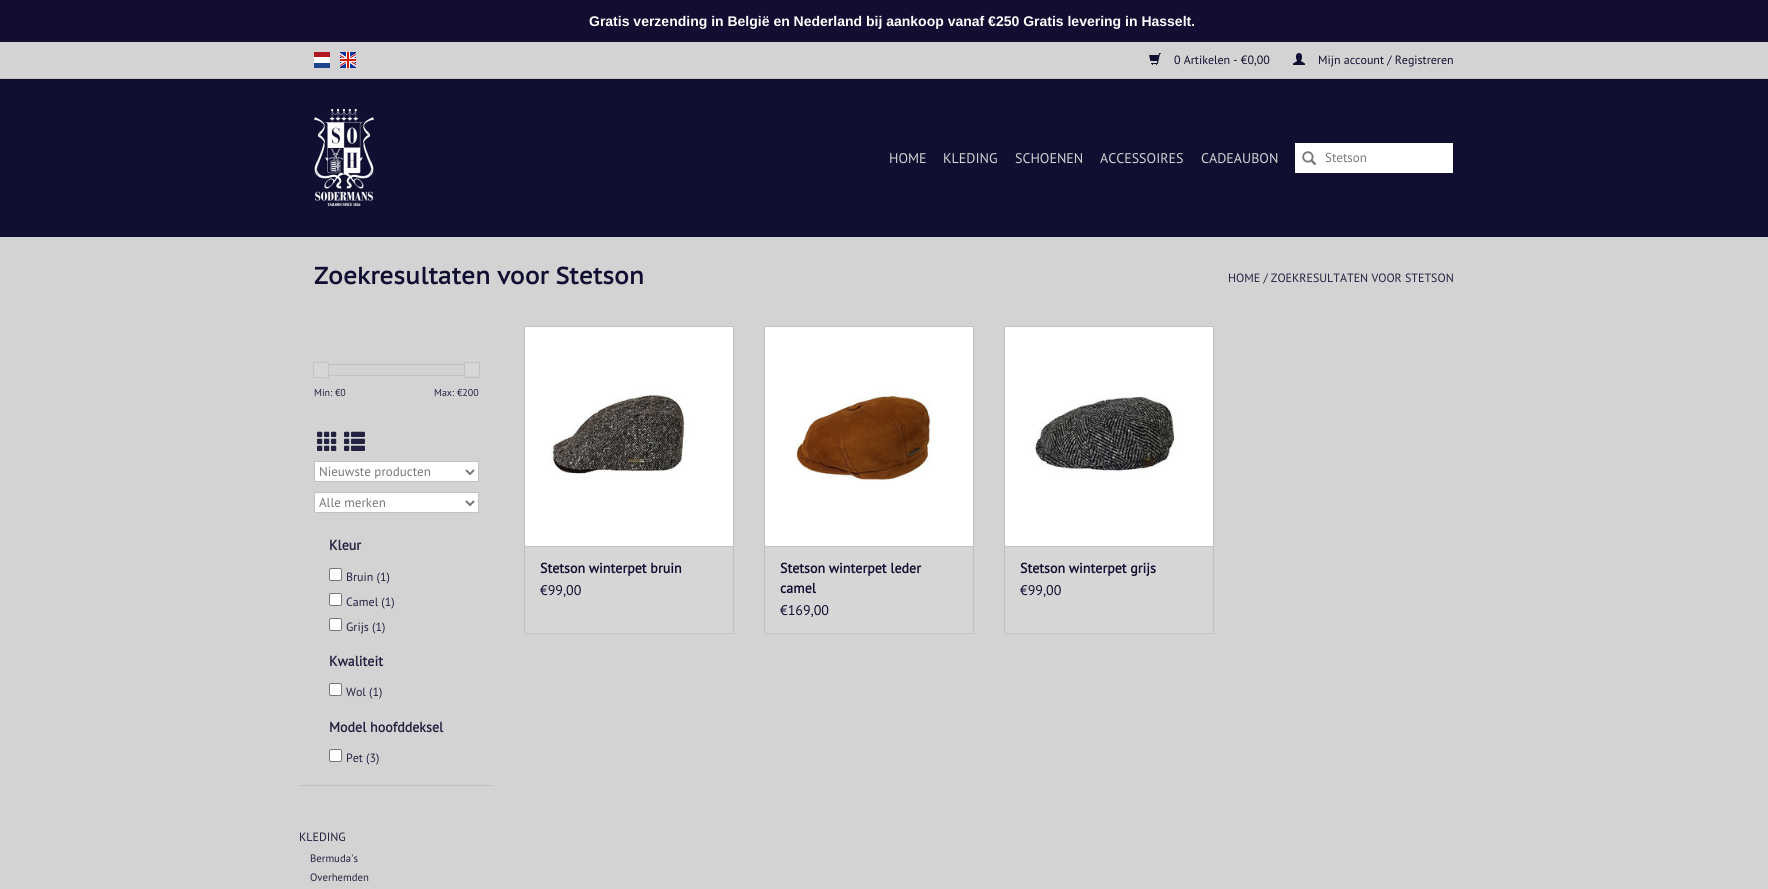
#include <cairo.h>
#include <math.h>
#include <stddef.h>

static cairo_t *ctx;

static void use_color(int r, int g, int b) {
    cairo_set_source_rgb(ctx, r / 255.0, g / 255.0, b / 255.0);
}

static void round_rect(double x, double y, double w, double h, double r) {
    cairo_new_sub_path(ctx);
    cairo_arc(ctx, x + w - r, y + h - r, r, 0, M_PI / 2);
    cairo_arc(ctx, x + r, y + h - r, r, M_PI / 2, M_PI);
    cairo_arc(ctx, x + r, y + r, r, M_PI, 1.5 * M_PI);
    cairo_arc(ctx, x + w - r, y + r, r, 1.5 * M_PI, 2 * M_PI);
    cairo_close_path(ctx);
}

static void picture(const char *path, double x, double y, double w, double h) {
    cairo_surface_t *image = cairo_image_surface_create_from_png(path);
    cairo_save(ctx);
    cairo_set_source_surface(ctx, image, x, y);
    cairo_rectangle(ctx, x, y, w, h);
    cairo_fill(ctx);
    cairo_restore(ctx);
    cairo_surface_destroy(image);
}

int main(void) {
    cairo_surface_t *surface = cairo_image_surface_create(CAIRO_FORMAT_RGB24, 1768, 889);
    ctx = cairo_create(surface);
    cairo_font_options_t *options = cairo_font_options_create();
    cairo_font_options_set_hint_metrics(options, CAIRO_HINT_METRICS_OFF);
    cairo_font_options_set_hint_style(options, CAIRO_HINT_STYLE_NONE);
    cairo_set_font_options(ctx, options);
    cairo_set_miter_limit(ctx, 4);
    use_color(211, 211, 211);
    cairo_paint(ctx);
    use_color(17, 14, 50);
    cairo_rectangle(ctx, 0, 0, 1768, 42);
    cairo_fill(ctx);
    cairo_select_font_face(ctx, "Liberation Sans", CAIRO_FONT_SLANT_NORMAL, CAIRO_FONT_WEIGHT_BOLD);
    cairo_set_font_size(ctx, 14);
    use_color(255, 255, 255);
    cairo_move_to(ctx, 589, 26);
    cairo_show_text(ctx, "Gratis verzending in België en Nederland bij aankoop vanaf €250 Gratis levering in Hasselt.");
    use_color(16, 15, 49);
    cairo_rectangle(ctx, 0, 79, 1768, 157);
    cairo_fill(ctx);
    use_color(14, 13, 45);
    cairo_rectangle(ctx, 0, 236, 1768, 1);
    cairo_fill(ctx);
    use_color(196, 196, 196);
    cairo_rectangle(ctx, 0, 78, 1768, 1);
    cairo_fill(ctx);
    picture("img1.png", 314, 52, 16, 16);
    picture("img2.png", 340, 52, 16, 16);
    picture("img3.png", 1149, 53, 12, 12);
    cairo_select_font_face(ctx, "PT Sans", CAIRO_FONT_SLANT_NORMAL, CAIRO_FONT_WEIGHT_NORMAL);
    cairo_set_font_size(ctx, 12);
    use_color(16, 15, 49);
    cairo_move_to(ctx, 1174, 64);
    cairo_show_text(ctx, "0 Artikelen - €0,00");
    picture("img4.png", 1293, 53, 12, 12);
    cairo_move_to(ctx, 1318, 64);
    cairo_show_text(ctx, "Mijn account / Registreren");
    picture("img5.png", 314, 109, 60, 97);
    cairo_set_font_size(ctx, 14);
    use_color(211, 211, 211);
    cairo_move_to(ctx, 889, 163);
    cairo_show_text(ctx, "HOME");
    cairo_move_to(ctx, 943, 163);
    cairo_show_text(ctx, "KLEDING");
    cairo_move_to(ctx, 1015, 163);
    cairo_show_text(ctx, "SCHOENEN");
    cairo_move_to(ctx, 1100, 163);
    cairo_show_text(ctx, "ACCESSOIRES");
    cairo_move_to(ctx, 1201, 163);
    cairo_show_text(ctx, "CADEAUBON");
    use_color(255, 255, 255);
    cairo_rectangle(ctx, 1294.5, 142.5, 159, 31);
    cairo_fill_preserve(ctx);
    use_color(14, 13, 45);
    cairo_set_line_width(ctx, 1);
    cairo_stroke(ctx);
    picture("img6.png", 1302, 151, 15, 15);
    cairo_set_font_size(ctx, 13);
    use_color(119, 119, 119);
    cairo_move_to(ctx, 1325, 162);
    cairo_show_text(ctx, "Stetson");
    cairo_select_font_face(ctx, "PT Sans Caption", CAIRO_FONT_SLANT_NORMAL, CAIRO_FONT_WEIGHT_BOLD);
    cairo_set_font_size(ctx, 23.6);
    use_color(16, 15, 49);
    cairo_move_to(ctx, 314, 284);
    cairo_show_text(ctx, "Zoekresultaten voor Stetson");
    cairo_select_font_face(ctx, "PT Sans", CAIRO_FONT_SLANT_NORMAL, CAIRO_FONT_WEIGHT_NORMAL);
    cairo_set_font_size(ctx, 12);
    use_color(35, 34, 65);
    cairo_move_to(ctx, 1228, 282);
    cairo_show_text(ctx, "HOME / ZOEKRESULTATEN VOOR STETSON");
    use_color(194, 194, 194);
    cairo_rectangle(ctx, 299, 785, 195, 1);
    cairo_fill(ctx);
    cairo_rectangle(ctx, 322.5, 364.5, 150, 11);
    cairo_stroke(ctx);
    use_color(214, 214, 214);
    cairo_rectangle(ctx, 313.5, 362.5, 15, 15);
    cairo_fill_preserve(ctx);
    use_color(194, 194, 194);
    cairo_stroke(ctx);
    use_color(214, 214, 214);
    cairo_rectangle(ctx, 464.5, 362.5, 15, 15);
    cairo_fill_preserve(ctx);
    use_color(194, 194, 194);
    cairo_stroke(ctx);
    cairo_set_font_size(ctx, 10);
    use_color(35, 34, 65);
    cairo_move_to(ctx, 314, 396);
    cairo_show_text(ctx, "Min: €0");
    cairo_move_to(ctx, 434, 396);
    cairo_show_text(ctx, "Max: €200");
    picture("img7.png", 317, 431, 20, 20);
    picture("img8.png", 344, 431, 21, 20);
    use_color(255, 255, 255);
    cairo_rectangle(ctx, 314.5, 461.5, 164, 20);
    cairo_fill_preserve(ctx);
    use_color(194, 194, 194);
    cairo_stroke(ctx);
    cairo_new_path(ctx);
    cairo_move_to(ctx, 466, 470);
    cairo_line_to(ctx, 470, 474);
    cairo_line_to(ctx, 474, 470);
    use_color(119, 119, 119);
    cairo_set_line_width(ctx, 2);
    cairo_stroke(ctx);
    cairo_set_font_size(ctx, 13);
    cairo_move_to(ctx, 319, 476);
    cairo_show_text(ctx, "Nieuwste producten");
    use_color(255, 255, 255);
    cairo_rectangle(ctx, 314.5, 492.5, 164, 20);
    cairo_fill_preserve(ctx);
    use_color(194, 194, 194);
    cairo_set_line_width(ctx, 1);
    cairo_stroke(ctx);
    cairo_new_path(ctx);
    cairo_move_to(ctx, 466, 501);
    cairo_line_to(ctx, 470, 505);
    cairo_line_to(ctx, 474, 501);
    use_color(119, 119, 119);
    cairo_set_line_width(ctx, 2);
    cairo_stroke(ctx);
    cairo_move_to(ctx, 319, 507);
    cairo_show_text(ctx, "Alle merken");
    cairo_select_font_face(ctx, "PT Sans", CAIRO_FONT_SLANT_NORMAL, CAIRO_FONT_WEIGHT_BOLD);
    cairo_set_font_size(ctx, 14);
    use_color(35, 34, 65);
    cairo_move_to(ctx, 329, 550);
    cairo_show_text(ctx, "Kleur");
    use_color(255, 255, 255);
    round_rect(329.5, 568.5, 12, 12, 1.5);
    cairo_fill_preserve(ctx);
    use_color(118, 118, 118);
    cairo_set_line_width(ctx, 1);
    cairo_stroke(ctx);
    cairo_select_font_face(ctx, "PT Sans", CAIRO_FONT_SLANT_NORMAL, CAIRO_FONT_WEIGHT_NORMAL);
    cairo_set_font_size(ctx, 12);
    use_color(35, 34, 65);
    cairo_move_to(ctx, 346, 581);
    cairo_show_text(ctx, "Bruin (1)");
    use_color(255, 255, 255);
    round_rect(329.5, 593.5, 12, 12, 1.5);
    cairo_fill_preserve(ctx);
    use_color(118, 118, 118);
    cairo_stroke(ctx);
    use_color(35, 34, 65);
    cairo_move_to(ctx, 346, 606);
    cairo_show_text(ctx, "Camel (1)");
    use_color(255, 255, 255);
    round_rect(329.5, 618.5, 12, 12, 1.5);
    cairo_fill_preserve(ctx);
    use_color(118, 118, 118);
    cairo_stroke(ctx);
    use_color(35, 34, 65);
    cairo_move_to(ctx, 346, 631);
    cairo_show_text(ctx, "Grijs (1)");
    cairo_select_font_face(ctx, "PT Sans", CAIRO_FONT_SLANT_NORMAL, CAIRO_FONT_WEIGHT_BOLD);
    cairo_set_font_size(ctx, 14);
    cairo_move_to(ctx, 329, 666);
    cairo_show_text(ctx, "Kwaliteit");
    use_color(255, 255, 255);
    round_rect(329.5, 683.5, 12, 12, 1.5);
    cairo_fill_preserve(ctx);
    use_color(118, 118, 118);
    cairo_stroke(ctx);
    cairo_select_font_face(ctx, "PT Sans", CAIRO_FONT_SLANT_NORMAL, CAIRO_FONT_WEIGHT_NORMAL);
    cairo_set_font_size(ctx, 12);
    use_color(35, 34, 65);
    cairo_move_to(ctx, 346, 696);
    cairo_show_text(ctx, "Wol (1)");
    cairo_select_font_face(ctx, "PT Sans", CAIRO_FONT_SLANT_NORMAL, CAIRO_FONT_WEIGHT_BOLD);
    cairo_set_font_size(ctx, 14);
    cairo_move_to(ctx, 329, 732);
    cairo_show_text(ctx, "Model hoofddeksel");
    use_color(255, 255, 255);
    round_rect(329.5, 749.5, 12, 12, 1.5);
    cairo_fill_preserve(ctx);
    use_color(118, 118, 118);
    cairo_stroke(ctx);
    cairo_select_font_face(ctx, "PT Sans", CAIRO_FONT_SLANT_NORMAL, CAIRO_FONT_WEIGHT_NORMAL);
    cairo_set_font_size(ctx, 12);
    use_color(35, 34, 65);
    cairo_move_to(ctx, 346, 762);
    cairo_show_text(ctx, "Pet (3)");
    cairo_move_to(ctx, 299, 841);
    cairo_show_text(ctx, "KLEDING");
    cairo_set_font_size(ctx, 10.75);
    cairo_move_to(ctx, 310, 862);
    cairo_show_text(ctx, "Bermuda's");
    cairo_move_to(ctx, 310, 881);
    cairo_show_text(ctx, "Overhemden");
    use_color(194, 194, 194);
    cairo_rectangle(ctx, 524, 326, 210, 1);
    cairo_fill(ctx);
    cairo_rectangle(ctx, 733, 326, 1, 220);
    cairo_fill(ctx);
    cairo_rectangle(ctx, 524, 326, 1, 220);
    cairo_fill(ctx);
    picture("img9.png", 525, 327, 208, 219);
    use_color(214, 214, 214);
    cairo_rectangle(ctx, 524.5, 546.5, 209, 87);
    cairo_fill_preserve(ctx);
    use_color(194, 194, 194);
    cairo_stroke(ctx);
    cairo_select_font_face(ctx, "PT Sans", CAIRO_FONT_SLANT_NORMAL, CAIRO_FONT_WEIGHT_BOLD);
    cairo_set_font_size(ctx, 14);
    use_color(16, 15, 49);
    cairo_move_to(ctx, 540, 573);
    cairo_show_text(ctx, "Stetson winterpet bruin");
    cairo_select_font_face(ctx, "PT Sans", CAIRO_FONT_SLANT_NORMAL, CAIRO_FONT_WEIGHT_NORMAL);
    cairo_move_to(ctx, 540, 595);
    cairo_show_text(ctx, "€99,00");
    use_color(194, 194, 194);
    cairo_rectangle(ctx, 764, 326, 210, 1);
    cairo_fill(ctx);
    cairo_rectangle(ctx, 973, 326, 1, 220);
    cairo_fill(ctx);
    cairo_rectangle(ctx, 764, 326, 1, 220);
    cairo_fill(ctx);
    picture("img10.png", 765, 327, 208, 219);
    use_color(214, 214, 214);
    cairo_rectangle(ctx, 764.5, 546.5, 209, 87);
    cairo_fill_preserve(ctx);
    use_color(194, 194, 194);
    cairo_stroke(ctx);
    cairo_select_font_face(ctx, "PT Sans", CAIRO_FONT_SLANT_NORMAL, CAIRO_FONT_WEIGHT_BOLD);
    use_color(16, 15, 49);
    cairo_move_to(ctx, 780, 573);
    cairo_show_text(ctx, "Stetson winterpet leder");
    cairo_move_to(ctx, 780, 593);
    cairo_show_text(ctx, "camel");
    cairo_select_font_face(ctx, "PT Sans", CAIRO_FONT_SLANT_NORMAL, CAIRO_FONT_WEIGHT_NORMAL);
    cairo_move_to(ctx, 780, 615);
    cairo_show_text(ctx, "€169,00");
    use_color(194, 194, 194);
    cairo_rectangle(ctx, 1004, 326, 210, 1);
    cairo_fill(ctx);
    cairo_rectangle(ctx, 1213, 326, 1, 220);
    cairo_fill(ctx);
    cairo_rectangle(ctx, 1004, 326, 1, 220);
    cairo_fill(ctx);
    picture("img11.png", 1005, 327, 208, 219);
    use_color(214, 214, 214);
    cairo_rectangle(ctx, 1004.5, 546.5, 209, 87);
    cairo_fill_preserve(ctx);
    use_color(194, 194, 194);
    cairo_stroke(ctx);
    cairo_select_font_face(ctx, "PT Sans", CAIRO_FONT_SLANT_NORMAL, CAIRO_FONT_WEIGHT_BOLD);
    use_color(16, 15, 49);
    cairo_move_to(ctx, 1020, 573);
    cairo_show_text(ctx, "Stetson winterpet grijs");
    cairo_select_font_face(ctx, "PT Sans", CAIRO_FONT_SLANT_NORMAL, CAIRO_FONT_WEIGHT_NORMAL);
    cairo_move_to(ctx, 1020, 595);
    cairo_show_text(ctx, "€99,00");
    cairo_surface_write_to_png(surface, "result.png");
    cairo_font_options_destroy(options);
    cairo_destroy(ctx);
    cairo_surface_destroy(surface);
    return 0;
}
